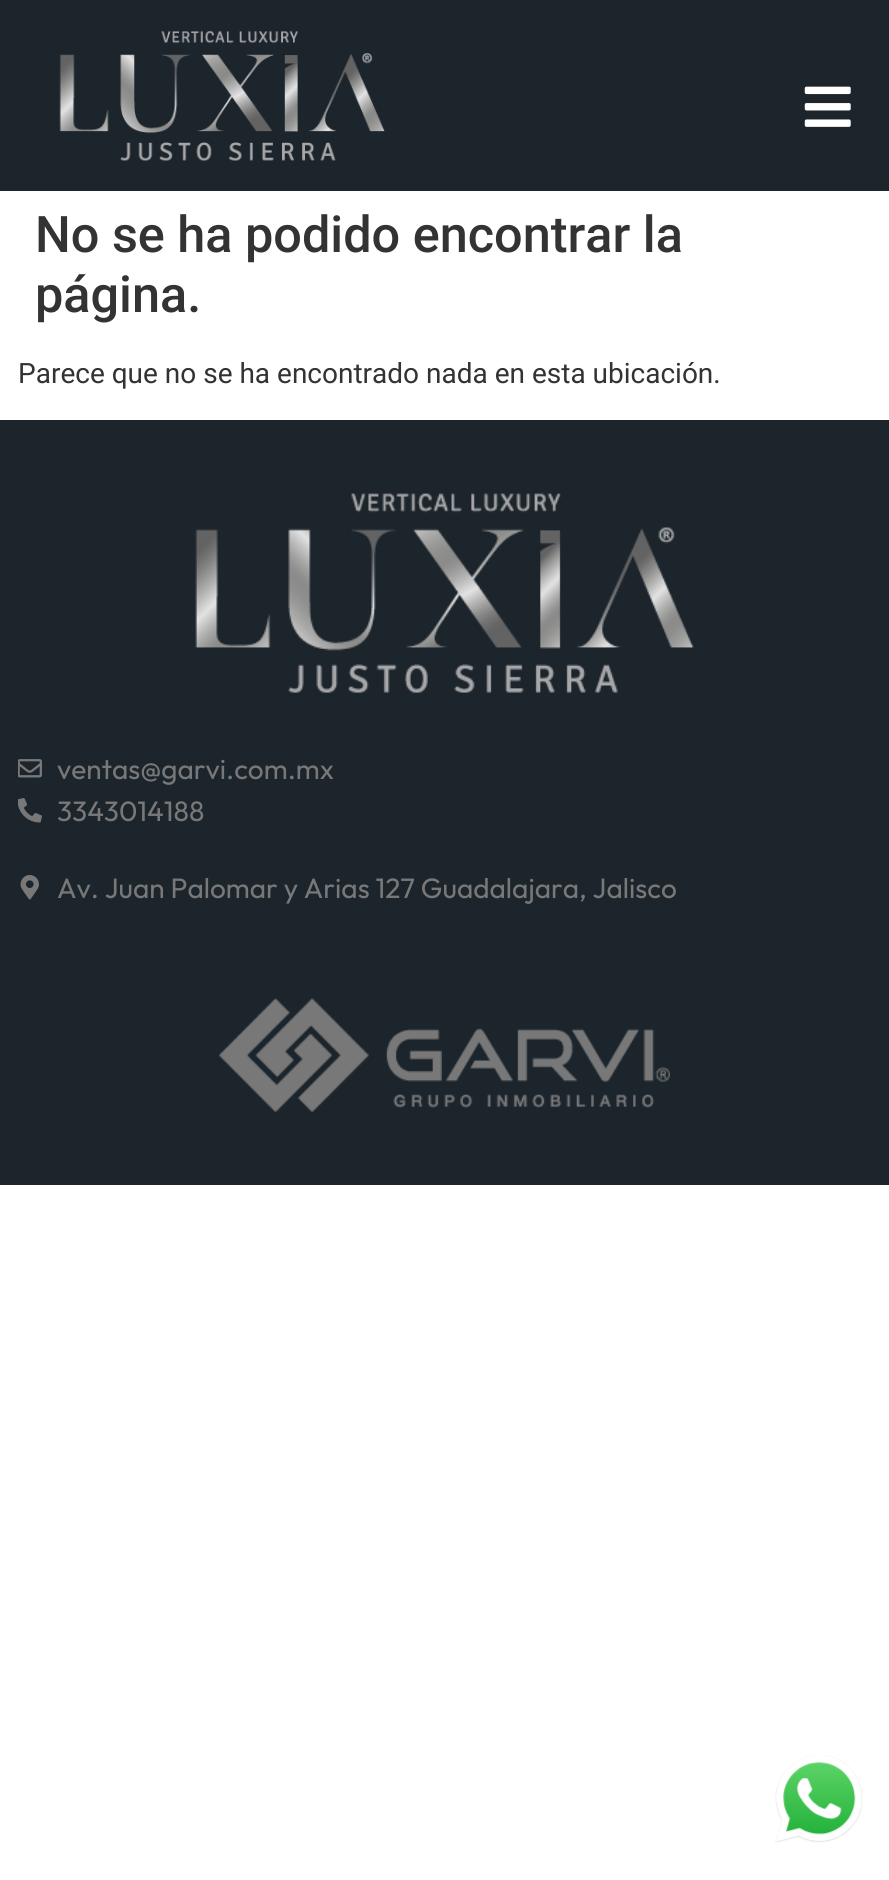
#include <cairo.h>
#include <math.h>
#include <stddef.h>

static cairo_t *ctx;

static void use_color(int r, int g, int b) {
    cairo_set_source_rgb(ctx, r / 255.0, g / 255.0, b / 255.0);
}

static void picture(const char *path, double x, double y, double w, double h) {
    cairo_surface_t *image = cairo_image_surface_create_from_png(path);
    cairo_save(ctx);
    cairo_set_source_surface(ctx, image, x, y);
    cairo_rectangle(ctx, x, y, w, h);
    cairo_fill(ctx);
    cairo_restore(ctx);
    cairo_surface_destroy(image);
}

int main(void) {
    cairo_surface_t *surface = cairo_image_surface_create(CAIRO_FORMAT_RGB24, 889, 1880);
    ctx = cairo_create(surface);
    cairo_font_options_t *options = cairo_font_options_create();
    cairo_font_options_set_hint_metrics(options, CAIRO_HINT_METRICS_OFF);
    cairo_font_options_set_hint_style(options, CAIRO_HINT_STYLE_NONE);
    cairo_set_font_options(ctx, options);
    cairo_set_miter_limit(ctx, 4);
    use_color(255, 255, 255);
    cairo_paint(ctx);
    use_color(28, 37, 44);
    cairo_rectangle(ctx, 0, 0, 889, 191);
    cairo_fill(ctx);
    picture("img1.png", 59, 31, 326, 130);
    picture("img2.png", 804, 86, 47, 41);
    cairo_select_font_face(ctx, "Roboto Medium", CAIRO_FONT_SLANT_NORMAL, CAIRO_FONT_WEIGHT_NORMAL);
    cairo_set_font_size(ctx, 50.4);
    use_color(51, 51, 51);
    cairo_move_to(ctx, 35, 252);
    cairo_show_text(ctx, "No se ha podido encontrar la");
    cairo_move_to(ctx, 35, 312);
    cairo_show_text(ctx, "página.");
    cairo_select_font_face(ctx, "Roboto", CAIRO_FONT_SLANT_NORMAL, CAIRO_FONT_WEIGHT_NORMAL);
    cairo_set_font_size(ctx, 28);
    cairo_move_to(ctx, 18, 383);
    cairo_show_text(ctx, "Parece que no se ha encontrado nada en esta ubicación.");
    use_color(28, 37, 44);
    cairo_rectangle(ctx, 0, 420, 889, 765);
    cairo_fill(ctx);
    picture("img3.png", 195, 493, 499, 200);
    picture("img4.png", 18, 759, 24, 19);
    cairo_select_font_face(ctx, "Outfit", CAIRO_FONT_SLANT_NORMAL, CAIRO_FONT_WEIGHT_NORMAL);
    use_color(120, 120, 120);
    cairo_move_to(ctx, 57, 779);
    cairo_show_text(ctx, "ventas@garvi.com.mx");
    picture("img5.png", 18, 798, 24, 25);
    cairo_move_to(ctx, 57, 821);
    cairo_show_text(ctx, "3343014188");
    picture("img6.png", 20, 875, 19, 25);
    cairo_move_to(ctx, 57, 898);
    cairo_show_text(ctx, "Av. Juan Palomar y Arias 127 Guadalajara, Jalisco");
    picture("img7.png", 219, 998, 451, 114);
    picture("img8.png", 775, 1755, 88, 88);
    cairo_surface_write_to_png(surface, "result.png");
    cairo_font_options_destroy(options);
    cairo_destroy(ctx);
    cairo_surface_destroy(surface);
    return 0;
}
